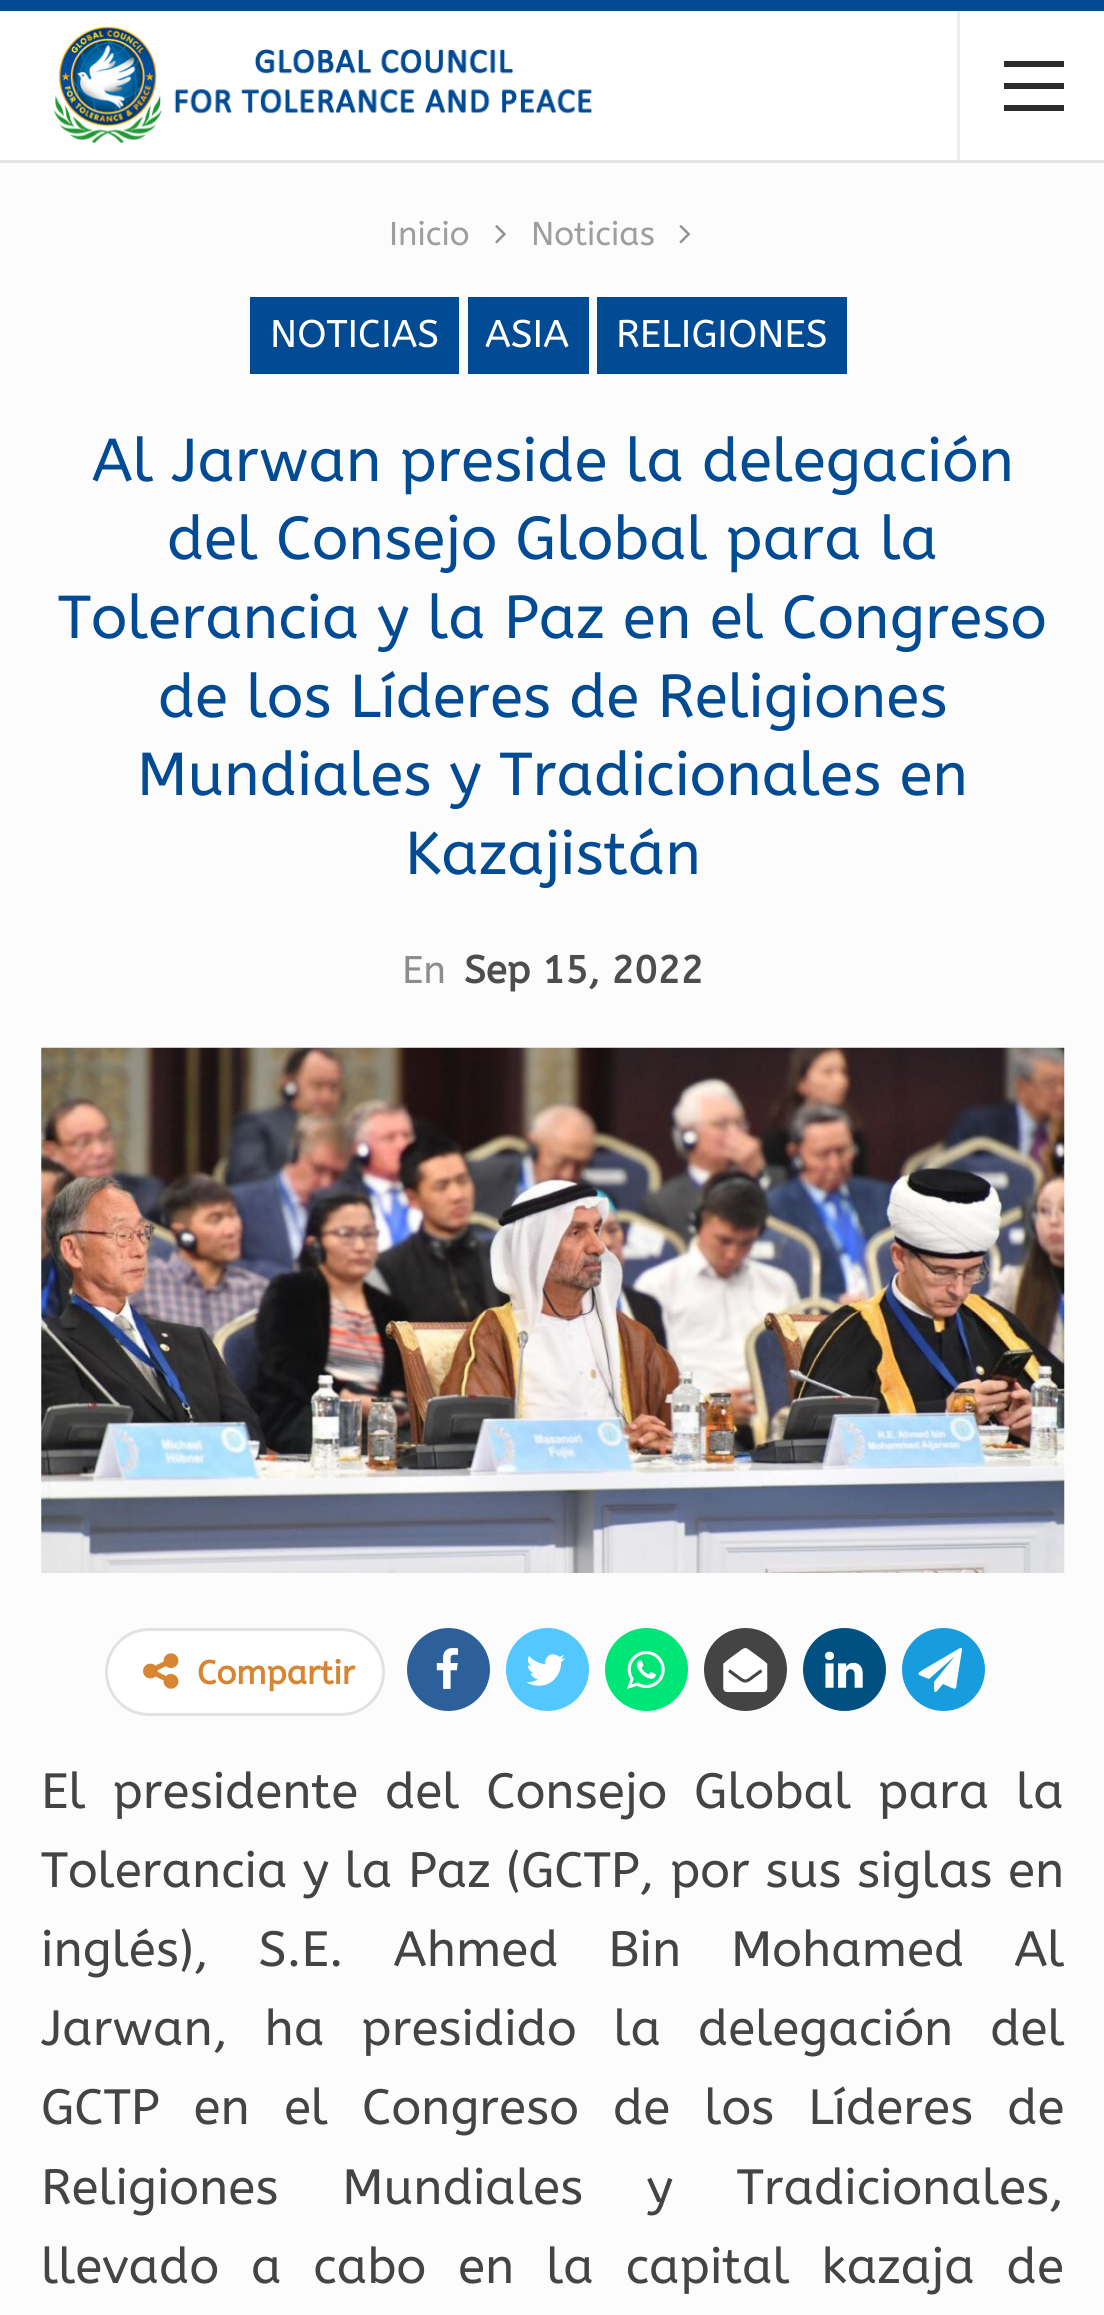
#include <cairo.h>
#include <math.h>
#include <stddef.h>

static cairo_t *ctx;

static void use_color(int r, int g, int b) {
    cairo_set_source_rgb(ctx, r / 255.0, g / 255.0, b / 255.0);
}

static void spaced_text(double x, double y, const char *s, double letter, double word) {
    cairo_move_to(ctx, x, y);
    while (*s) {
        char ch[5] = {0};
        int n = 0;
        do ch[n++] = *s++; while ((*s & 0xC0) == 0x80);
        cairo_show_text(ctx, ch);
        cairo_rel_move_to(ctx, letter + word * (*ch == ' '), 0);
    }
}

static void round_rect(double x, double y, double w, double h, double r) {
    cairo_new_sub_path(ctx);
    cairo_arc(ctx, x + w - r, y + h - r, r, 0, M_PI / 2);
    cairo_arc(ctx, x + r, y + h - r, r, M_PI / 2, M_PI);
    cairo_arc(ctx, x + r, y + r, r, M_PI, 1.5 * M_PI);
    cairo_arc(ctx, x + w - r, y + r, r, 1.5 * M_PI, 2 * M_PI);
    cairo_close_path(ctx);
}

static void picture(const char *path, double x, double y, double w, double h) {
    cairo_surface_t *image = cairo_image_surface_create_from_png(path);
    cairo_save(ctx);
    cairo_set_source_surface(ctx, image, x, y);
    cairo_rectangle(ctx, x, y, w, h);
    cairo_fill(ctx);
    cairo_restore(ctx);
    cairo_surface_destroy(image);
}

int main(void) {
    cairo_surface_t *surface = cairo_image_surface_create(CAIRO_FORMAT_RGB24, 1104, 2315);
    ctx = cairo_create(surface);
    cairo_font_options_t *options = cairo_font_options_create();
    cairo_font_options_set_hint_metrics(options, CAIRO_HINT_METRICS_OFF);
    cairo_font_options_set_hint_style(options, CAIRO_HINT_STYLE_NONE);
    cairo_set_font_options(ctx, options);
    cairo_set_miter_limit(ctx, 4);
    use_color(1, 74, 148);
    cairo_paint(ctx);
    use_color(252, 252, 252);
    cairo_rectangle(ctx, 0, 163, 1104, 2152);
    cairo_fill(ctx);
    use_color(255, 255, 255);
    cairo_rectangle(ctx, 0, 11, 1104, 149);
    cairo_fill(ctx);
    use_color(229, 229, 229);
    cairo_rectangle(ctx, 0, 160, 1104, 3);
    cairo_fill(ctx);
    picture("img1.png", 54, 26, 539, 117);
    use_color(237, 237, 237);
    cairo_rectangle(ctx, 957, 11, 3, 149);
    cairo_fill(ctx);
    use_color(44, 44, 44);
    cairo_rectangle(ctx, 1004, 83, 60, 6);
    cairo_fill(ctx);
    cairo_rectangle(ctx, 1004, 61, 60, 6);
    cairo_fill(ctx);
    cairo_rectangle(ctx, 1004, 105, 60, 6);
    cairo_fill(ctx);
    cairo_select_font_face(ctx, "ABeeZee", CAIRO_FONT_SLANT_NORMAL, CAIRO_FONT_WEIGHT_NORMAL);
    cairo_set_font_size(ctx, 33);
    use_color(158, 158, 158);
    cairo_move_to(ctx, 389, 245);
    cairo_show_text(ctx, "Inicio");
    picture("img2.png", 495, 225, 11, 19);
    cairo_move_to(ctx, 531, 245);
    cairo_show_text(ctx, "Noticias");
    picture("img3.png", 679, 225, 12, 19);
    use_color(1, 74, 148);
    cairo_rectangle(ctx, 250, 297, 209, 77);
    cairo_fill(ctx);
    cairo_set_font_size(ctx, 38.5);
    use_color(255, 255, 255);
    cairo_move_to(ctx, 270, 347);
    cairo_show_text(ctx, "NOTICIAS");
    use_color(1, 74, 148);
    cairo_rectangle(ctx, 468, 297, 121, 77);
    cairo_fill(ctx);
    use_color(255, 255, 255);
    cairo_move_to(ctx, 485, 347);
    cairo_show_text(ctx, "ASIA");
    use_color(1, 74, 148);
    cairo_rectangle(ctx, 597, 297, 250, 77);
    cairo_fill(ctx);
    use_color(255, 255, 255);
    cairo_move_to(ctx, 616, 347);
    cairo_show_text(ctx, "RELIGIONES");
    cairo_set_font_size(ctx, 60.5);
    use_color(1, 74, 148);
    cairo_move_to(ctx, 92, 481);
    cairo_show_text(ctx, "Al Jarwan preside la delegación");
    cairo_move_to(ctx, 167, 559);
    cairo_show_text(ctx, "del Consejo Global para la");
    cairo_move_to(ctx, 58, 638);
    cairo_show_text(ctx, "Tolerancia y la Paz en el Congreso");
    cairo_move_to(ctx, 158, 717);
    cairo_show_text(ctx, "de los Líderes de Religiones");
    cairo_move_to(ctx, 137, 795);
    cairo_show_text(ctx, "Mundiales y Tradicionales en");
    cairo_move_to(ctx, 405, 874);
    cairo_show_text(ctx, "Kazajistán");
    cairo_set_font_size(ctx, 38.5);
    use_color(141, 141, 141);
    cairo_move_to(ctx, 402, 983);
    cairo_show_text(ctx, "En");
    cairo_select_font_face(ctx, "ABeeZee", CAIRO_FONT_SLANT_NORMAL, CAIRO_FONT_WEIGHT_BOLD);
    use_color(77, 77, 77);
    cairo_move_to(ctx, 464, 983);
    cairo_show_text(ctx, "Sep 15, 2022");
    picture("img4.png", 41, 1047, 1024, 526);
    use_color(255, 255, 255);
    round_rect(106.5, 1629.5, 277, 85, 42.5);
    cairo_fill_preserve(ctx);
    use_color(226, 226, 226);
    cairo_set_line_width(ctx, 3);
    cairo_stroke(ctx);
    picture("img5.png", 143, 1653, 36, 36);
    cairo_set_font_size(ctx, 33);
    use_color(216, 133, 49);
    cairo_move_to(ctx, 197, 1684);
    cairo_show_text(ctx, "Compartir");
    use_color(45, 95, 154);
    cairo_new_path(ctx);
    cairo_arc(ctx, 448.5, 1669.5, 41.5, 0, 2 * M_PI);
    cairo_fill(ctx);
    picture("img6.png", 436, 1648, 23, 41);
    use_color(83, 199, 255);
    cairo_arc(ctx, 547.5, 1669.5, 41.5, 0, 2 * M_PI);
    cairo_fill(ctx);
    picture("img7.png", 526, 1654, 39, 32);
    use_color(0, 230, 118);
    cairo_arc(ctx, 646.5, 1669.5, 41.5, 0, 2 * M_PI);
    cairo_fill(ctx);
    picture("img8.png", 627, 1651, 38, 38);
    use_color(68, 68, 68);
    cairo_arc(ctx, 745.5, 1669.5, 41.5, 0, 2 * M_PI);
    cairo_fill(ctx);
    picture("img9.png", 723, 1648, 45, 45);
    use_color(0, 81, 130);
    cairo_arc(ctx, 844.5, 1669.5, 41.5, 0, 2 * M_PI);
    cairo_fill(ctx);
    picture("img10.png", 825, 1651, 38, 37);
    use_color(23, 156, 222);
    cairo_arc(ctx, 943.5, 1669.5, 41.5, 0, 2 * M_PI);
    cairo_fill(ctx);
    use_color(255, 255, 255);
    cairo_new_path(ctx);
    cairo_move_to(ctx, 962, 1648);
    cairo_line_to(ctx, 962, 1650);
    cairo_line_to(ctx, 957, 1681);
    cairo_curve_to(ctx, 956, 1688, 957, 1690, 952, 1688);
    cairo_line_to(ctx, 943, 1684);
    cairo_curve_to(ctx, 934, 1695, 934, 1695, 934, 1682);
    cairo_line_to(ctx, 955, 1656);
    cairo_line_to(ctx, 929, 1679);
    cairo_curve_to(ctx, 917, 1674, 914, 1675, 926, 1668);
    cairo_line_to(ctx, 960, 1648);
    cairo_close_path(ctx);
    cairo_fill(ctx);
    cairo_select_font_face(ctx, "ABeeZee", CAIRO_FONT_SLANT_NORMAL, CAIRO_FONT_WEIGHT_NORMAL);
    cairo_set_font_size(ctx, 49.5);
    use_color(68, 68, 68);
    spaced_text(41, 1808, "El presidente del Consejo Global para la", 0, 12);
    spaced_text(41, 1887, "Tolerancia y la Paz (GCTP, por sus siglas en", 0, 0.75);
    spaced_text(41, 1966, "inglés), S.E. Ahmed Bin Mohamed Al", 0, 35);
    spaced_text(41, 2045, "Jarwan, ha presidido la delegación del", 0, 22);
    spaced_text(41, 2124, "GCTP en el Congreso de los Líderes de", 0, 19.25);
    spaced_text(41, 2204, "Religiones Mundiales y Tradicionales,", 0, 49);
    spaced_text(41, 2283, "llevado a cabo en la capital kazaja de", 0, 17);
    cairo_surface_write_to_png(surface, "result.png");
    cairo_font_options_destroy(options);
    cairo_destroy(ctx);
    cairo_surface_destroy(surface);
    return 0;
}
